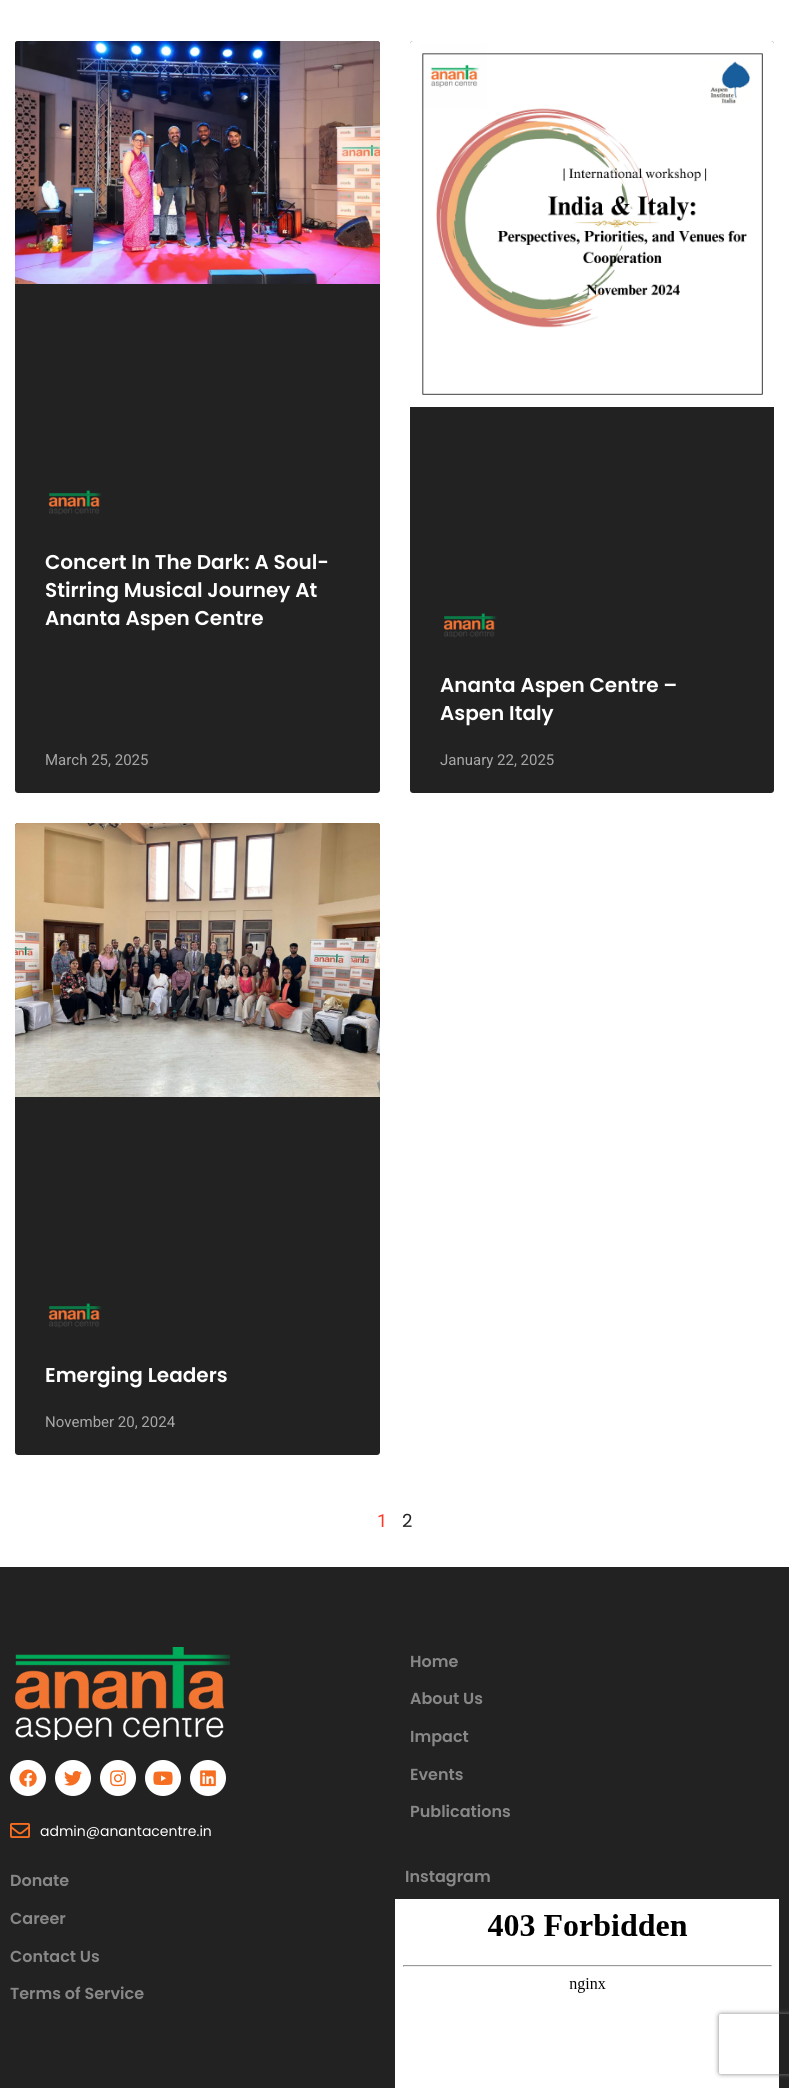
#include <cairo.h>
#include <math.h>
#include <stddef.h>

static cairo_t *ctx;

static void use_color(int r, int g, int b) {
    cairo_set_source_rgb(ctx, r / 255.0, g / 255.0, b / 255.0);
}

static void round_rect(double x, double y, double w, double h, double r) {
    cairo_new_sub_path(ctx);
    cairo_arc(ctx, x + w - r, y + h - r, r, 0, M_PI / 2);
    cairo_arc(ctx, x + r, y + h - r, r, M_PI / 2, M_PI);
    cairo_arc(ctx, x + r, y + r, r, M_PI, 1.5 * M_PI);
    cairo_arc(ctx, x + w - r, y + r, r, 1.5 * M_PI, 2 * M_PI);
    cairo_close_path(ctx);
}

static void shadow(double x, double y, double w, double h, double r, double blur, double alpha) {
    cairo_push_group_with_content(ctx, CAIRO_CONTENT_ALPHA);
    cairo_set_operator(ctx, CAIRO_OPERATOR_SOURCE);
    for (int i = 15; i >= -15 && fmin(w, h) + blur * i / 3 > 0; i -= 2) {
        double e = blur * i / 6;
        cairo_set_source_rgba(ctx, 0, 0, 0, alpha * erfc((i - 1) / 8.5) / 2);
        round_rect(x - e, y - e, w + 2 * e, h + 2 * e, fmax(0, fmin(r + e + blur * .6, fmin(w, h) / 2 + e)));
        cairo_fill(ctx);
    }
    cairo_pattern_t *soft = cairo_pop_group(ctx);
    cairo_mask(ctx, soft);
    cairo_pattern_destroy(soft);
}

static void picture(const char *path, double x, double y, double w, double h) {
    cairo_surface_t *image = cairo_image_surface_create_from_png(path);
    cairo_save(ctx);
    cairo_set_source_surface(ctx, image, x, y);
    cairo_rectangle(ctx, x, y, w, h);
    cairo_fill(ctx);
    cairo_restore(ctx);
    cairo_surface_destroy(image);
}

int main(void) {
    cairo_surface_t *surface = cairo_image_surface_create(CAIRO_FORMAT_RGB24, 789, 2088);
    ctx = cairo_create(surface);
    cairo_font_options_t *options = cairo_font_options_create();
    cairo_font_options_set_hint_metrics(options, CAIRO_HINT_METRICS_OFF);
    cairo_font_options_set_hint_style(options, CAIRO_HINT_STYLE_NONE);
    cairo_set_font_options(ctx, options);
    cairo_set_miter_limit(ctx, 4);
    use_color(255, 255, 255);
    cairo_paint(ctx);
    use_color(34, 34, 34);
    round_rect(15, 41, 365, 752, 3);
    cairo_fill(ctx);
    picture("img1.png", 15, 41, 365, 243);
    picture("img2.png", 48, 490, 54, 25);
    cairo_select_font_face(ctx, "Poppins SemiBold", CAIRO_FONT_SLANT_NORMAL, CAIRO_FONT_WEIGHT_NORMAL);
    cairo_set_font_size(ctx, 20);
    use_color(255, 255, 255);
    cairo_move_to(ctx, 45, 569);
    cairo_show_text(ctx, "Concert In The Dark: A Soul-");
    cairo_move_to(ctx, 45, 597);
    cairo_show_text(ctx, "Stirring Musical Journey At");
    cairo_move_to(ctx, 45, 625);
    cairo_show_text(ctx, "Ananta Aspen Centre");
    cairo_select_font_face(ctx, "Roboto", CAIRO_FONT_SLANT_NORMAL, CAIRO_FONT_WEIGHT_NORMAL);
    cairo_set_font_size(ctx, 15);
    use_color(167, 167, 167);
    cairo_move_to(ctx, 45, 765);
    cairo_show_text(ctx, "March 25, 2025");
    use_color(34, 34, 34);
    round_rect(410, 41, 364, 752, 3);
    cairo_fill(ctx);
    picture("img3.png", 410, 41, 364, 366);
    picture("img2.png", 443, 613, 54, 25);
    cairo_select_font_face(ctx, "Poppins SemiBold", CAIRO_FONT_SLANT_NORMAL, CAIRO_FONT_WEIGHT_NORMAL);
    cairo_set_font_size(ctx, 20);
    use_color(255, 255, 255);
    cairo_move_to(ctx, 440, 692);
    cairo_show_text(ctx, "Ananta Aspen Centre –");
    cairo_move_to(ctx, 440, 720);
    cairo_show_text(ctx, "Aspen Italy");
    cairo_select_font_face(ctx, "Roboto", CAIRO_FONT_SLANT_NORMAL, CAIRO_FONT_WEIGHT_NORMAL);
    cairo_set_font_size(ctx, 15);
    use_color(167, 167, 167);
    cairo_move_to(ctx, 440, 765);
    cairo_show_text(ctx, "January 22, 2025");
    use_color(34, 34, 34);
    round_rect(15, 823, 365, 632, 3);
    cairo_fill(ctx);
    picture("img4.png", 15, 823, 365, 274);
    picture("img2.png", 48, 1303, 54, 25);
    cairo_select_font_face(ctx, "Poppins SemiBold", CAIRO_FONT_SLANT_NORMAL, CAIRO_FONT_WEIGHT_NORMAL);
    cairo_set_font_size(ctx, 20);
    use_color(255, 255, 255);
    cairo_move_to(ctx, 45, 1382);
    cairo_show_text(ctx, "Emerging Leaders");
    cairo_select_font_face(ctx, "Roboto", CAIRO_FONT_SLANT_NORMAL, CAIRO_FONT_WEIGHT_NORMAL);
    cairo_set_font_size(ctx, 15);
    use_color(167, 167, 167);
    cairo_move_to(ctx, 45, 1427);
    cairo_show_text(ctx, "November 20, 2024");
    cairo_set_font_size(ctx, 18);
    use_color(249, 56, 37);
    cairo_move_to(ctx, 377, 1527);
    cairo_show_text(ctx, "1");
    cairo_select_font_face(ctx, "Poppins", CAIRO_FONT_SLANT_NORMAL, CAIRO_FONT_WEIGHT_NORMAL);
    use_color(34, 34, 34);
    cairo_move_to(ctx, 402, 1527);
    cairo_show_text(ctx, "2");
    cairo_rectangle(ctx, 0, 1567, 789, 521);
    cairo_fill(ctx);
    cairo_select_font_face(ctx, "Poppins SemiBold", CAIRO_FONT_SLANT_NORMAL, CAIRO_FONT_WEIGHT_NORMAL);
    cairo_set_font_size(ctx, 16);
    use_color(136, 136, 136);
    cairo_move_to(ctx, 410, 1667);
    cairo_show_text(ctx, "Home");
    cairo_move_to(ctx, 410, 1704);
    cairo_show_text(ctx, "About Us");
    cairo_move_to(ctx, 410, 1742);
    cairo_show_text(ctx, "Impact");
    cairo_move_to(ctx, 410, 1780);
    cairo_show_text(ctx, "Events");
    cairo_move_to(ctx, 410, 1817);
    cairo_show_text(ctx, "Publications");
    picture("img5.png", 15, 1647, 215, 93);
    use_color(255, 255, 255);
    cairo_arc(ctx, 28, 1778, 18, 0, 2 * M_PI);
    cairo_fill(ctx);
    picture("img6.png", 19, 1769, 18, 18);
    cairo_arc(ctx, 73, 1778, 18, 0, 2 * M_PI);
    cairo_fill(ctx);
    picture("img7.png", 64, 1770, 18, 16);
    cairo_arc(ctx, 118, 1778, 18, 0, 2 * M_PI);
    cairo_fill(ctx);
    picture("img8.png", 110, 1770, 16, 17);
    cairo_arc(ctx, 163, 1778, 18, 0, 2 * M_PI);
    cairo_fill(ctx);
    picture("img9.png", 153, 1771, 20, 14);
    cairo_arc(ctx, 208, 1778, 18, 0, 2 * M_PI);
    cairo_fill(ctx);
    picture("img10.png", 200, 1770, 16, 17);
    picture("img11.png", 10, 1823, 20, 15);
    cairo_select_font_face(ctx, "Poppins", CAIRO_FONT_SLANT_NORMAL, CAIRO_FONT_WEIGHT_NORMAL);
    cairo_set_font_size(ctx, 14);
    cairo_move_to(ctx, 40, 1836);
    cairo_show_text(ctx, "admin@anantacentre.in");
    cairo_select_font_face(ctx, "Poppins SemiBold", CAIRO_FONT_SLANT_NORMAL, CAIRO_FONT_WEIGHT_NORMAL);
    cairo_set_font_size(ctx, 16);
    use_color(136, 136, 136);
    cairo_move_to(ctx, 10, 1886);
    cairo_show_text(ctx, "Donate");
    cairo_move_to(ctx, 10, 1924);
    cairo_show_text(ctx, "Career");
    cairo_move_to(ctx, 10, 1962);
    cairo_show_text(ctx, "Contact Us");
    cairo_move_to(ctx, 10, 1999);
    cairo_show_text(ctx, "Terms of Service");
    cairo_move_to(ctx, 405, 1882);
    cairo_show_text(ctx, "Instagram");
    use_color(255, 255, 255);
    cairo_rectangle(ctx, 395, 1899, 384, 189);
    cairo_fill(ctx);
    picture("img12.png", 403, 1914, 369, 79);
    cairo_save(ctx);
    cairo_set_fill_rule(ctx, CAIRO_FILL_RULE_EVEN_ODD);
    cairo_new_path(ctx);
    cairo_move_to(ctx, 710, 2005);
    cairo_line_to(ctx, 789, 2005);
    cairo_line_to(ctx, 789, 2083);
    cairo_line_to(ctx, 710, 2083);
    cairo_close_path(ctx);
    cairo_move_to(ctx, 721, 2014);
    cairo_line_to(ctx, 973, 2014);
    cairo_curve_to(ctx, 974, 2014, 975, 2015, 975, 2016);
    cairo_line_to(ctx, 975, 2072);
    cairo_curve_to(ctx, 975, 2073, 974, 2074, 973, 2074);
    cairo_line_to(ctx, 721, 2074);
    cairo_curve_to(ctx, 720, 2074, 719, 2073, 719, 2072);
    cairo_line_to(ctx, 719, 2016);
    cairo_curve_to(ctx, 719, 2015, 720, 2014, 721, 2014);
    cairo_close_path(ctx);
    cairo_clip(ctx);
    use_color(128, 128, 128);
    shadow(719, 2014, 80, 60, 2, 2.5, 1);
    cairo_restore(ctx);
    cairo_surface_write_to_png(surface, "result.png");
    cairo_font_options_destroy(options);
    cairo_destroy(ctx);
    cairo_surface_destroy(surface);
    return 0;
}
